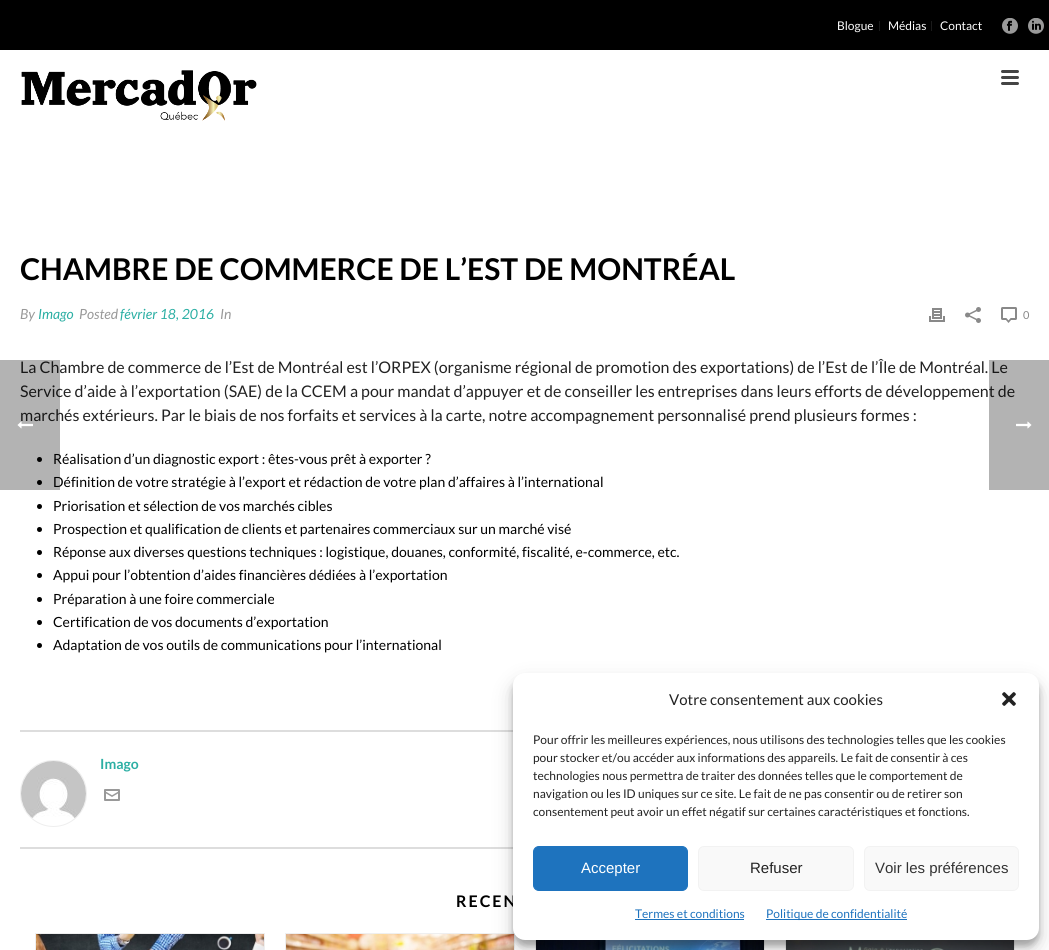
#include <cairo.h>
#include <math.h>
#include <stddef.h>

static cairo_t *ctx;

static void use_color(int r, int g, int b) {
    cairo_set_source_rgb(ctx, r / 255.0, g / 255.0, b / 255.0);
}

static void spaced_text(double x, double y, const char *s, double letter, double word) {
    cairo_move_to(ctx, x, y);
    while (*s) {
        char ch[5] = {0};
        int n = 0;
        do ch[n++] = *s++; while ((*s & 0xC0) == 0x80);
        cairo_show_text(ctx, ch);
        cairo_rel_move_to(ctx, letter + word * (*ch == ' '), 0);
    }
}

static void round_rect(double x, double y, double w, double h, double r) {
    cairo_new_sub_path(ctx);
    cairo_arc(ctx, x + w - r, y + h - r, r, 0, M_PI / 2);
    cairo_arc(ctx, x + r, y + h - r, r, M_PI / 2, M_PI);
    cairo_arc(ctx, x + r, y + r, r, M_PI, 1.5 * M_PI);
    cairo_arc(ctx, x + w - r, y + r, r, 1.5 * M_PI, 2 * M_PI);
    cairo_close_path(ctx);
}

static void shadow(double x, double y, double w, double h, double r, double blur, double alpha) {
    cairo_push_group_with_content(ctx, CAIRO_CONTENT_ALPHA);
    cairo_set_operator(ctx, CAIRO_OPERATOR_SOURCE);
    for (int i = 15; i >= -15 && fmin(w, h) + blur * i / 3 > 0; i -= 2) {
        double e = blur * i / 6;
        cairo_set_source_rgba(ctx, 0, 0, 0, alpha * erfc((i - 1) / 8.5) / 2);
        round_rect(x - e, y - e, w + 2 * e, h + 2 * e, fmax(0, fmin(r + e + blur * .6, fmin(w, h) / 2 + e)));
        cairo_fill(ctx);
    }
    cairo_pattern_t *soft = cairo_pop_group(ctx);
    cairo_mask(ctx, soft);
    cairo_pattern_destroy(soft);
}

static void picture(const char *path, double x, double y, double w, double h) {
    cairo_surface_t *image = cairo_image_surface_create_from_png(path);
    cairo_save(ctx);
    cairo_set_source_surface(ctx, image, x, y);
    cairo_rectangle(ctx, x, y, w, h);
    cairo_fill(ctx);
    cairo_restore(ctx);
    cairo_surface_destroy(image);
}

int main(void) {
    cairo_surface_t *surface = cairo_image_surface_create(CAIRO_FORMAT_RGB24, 1049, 950);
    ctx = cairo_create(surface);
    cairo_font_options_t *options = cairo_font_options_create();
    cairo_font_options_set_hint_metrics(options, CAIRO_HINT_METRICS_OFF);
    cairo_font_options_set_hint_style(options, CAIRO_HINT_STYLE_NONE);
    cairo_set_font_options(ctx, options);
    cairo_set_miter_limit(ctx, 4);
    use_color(255, 255, 255);
    cairo_paint(ctx);
    use_color(0, 0, 0);
    cairo_rectangle(ctx, 0, 0, 1049, 50);
    cairo_fill(ctx);
    use_color(26, 26, 26);
    cairo_rectangle(ctx, 879, 21, 1, 10);
    cairo_fill(ctx);
    cairo_select_font_face(ctx, "Lato", CAIRO_FONT_SLANT_NORMAL, CAIRO_FONT_WEIGHT_NORMAL);
    cairo_set_font_size(ctx, 12);
    use_color(255, 255, 255);
    cairo_move_to(ctx, 837, 30);
    cairo_show_text(ctx, "Blogue");
    use_color(26, 26, 26);
    cairo_rectangle(ctx, 931, 21, 1, 10);
    cairo_fill(ctx);
    use_color(255, 255, 255);
    cairo_move_to(ctx, 888, 30);
    cairo_show_text(ctx, "Médias");
    cairo_move_to(ctx, 940, 30);
    cairo_show_text(ctx, "Contact");
    picture("img1.png", 1002, 18, 16, 16);
    picture("img2.png", 1028, 18, 16, 16);
    picture("img3.png", 21, 70, 236, 51);
    use_color(68, 68, 68);
    round_rect(1001, 70, 18, 3, 1.5);
    cairo_fill(ctx);
    round_rect(1001, 76, 18, 3, 1.5);
    cairo_fill(ctx);
    round_rect(1001, 82, 18, 3, 1.5);
    cairo_fill(ctx);
    cairo_select_font_face(ctx, "Lato", CAIRO_FONT_SLANT_NORMAL, CAIRO_FONT_WEIGHT_BOLD);
    cairo_set_font_size(ctx, 30);
    use_color(0, 0, 0);
    cairo_move_to(ctx, 20, 280);
    cairo_show_text(ctx, "CHAMBRE DE COMMERCE DE L’EST DE MONTRÉAL");
    cairo_select_font_face(ctx, "Lato", CAIRO_FONT_SLANT_ITALIC, CAIRO_FONT_WEIGHT_NORMAL);
    cairo_set_font_size(ctx, 14);
    use_color(153, 153, 153);
    cairo_move_to(ctx, 20, 319);
    cairo_show_text(ctx, "By");
    use_color(44, 175, 164);
    cairo_move_to(ctx, 38, 319);
    cairo_show_text(ctx, "Imago");
    use_color(153, 153, 153);
    cairo_move_to(ctx, 79, 319);
    cairo_show_text(ctx, "Posted");
    use_color(44, 175, 164);
    cairo_move_to(ctx, 120, 319);
    cairo_show_text(ctx, "février 18, 2016");
    use_color(153, 153, 153);
    cairo_move_to(ctx, 220, 319);
    cairo_show_text(ctx, "In");
    picture("img4.png", 929, 308, 16, 14);
    picture("img5.png", 965, 307, 16, 16);
    picture("img6.png", 1001, 307, 16, 16);
    cairo_select_font_face(ctx, "Lato", CAIRO_FONT_SLANT_NORMAL, CAIRO_FONT_WEIGHT_NORMAL);
    cairo_set_font_size(ctx, 11);
    use_color(137, 137, 137);
    cairo_move_to(ctx, 1023, 319);
    cairo_show_text(ctx, "0");
    cairo_set_font_size(ctx, 16);
    use_color(34, 34, 34);
    cairo_move_to(ctx, 20, 373);
    cairo_show_text(ctx, "La Chambre de commerce de l’Est de Montréal est l’ORPEX (organisme régional de promotion des exportations) de l’Est de l’Île de Montréal. Le");
    cairo_move_to(ctx, 20, 397);
    cairo_show_text(ctx, "Service d’aide à l’exportation (SAE) de la CCEM a pour mandat d’appuyer et de conseiller les entreprises dans leurs efforts de développement de");
    cairo_move_to(ctx, 20, 421);
    cairo_show_text(ctx, "marchés extérieurs. Par le biais de nos forfaits et services à la carte, notre accompagnement personnalisé prend plusieurs formes :");
    use_color(0, 0, 0);
    cairo_new_path(ctx);
    cairo_arc(ctx, 39.5, 459.5, 2.5, 0, 2 * M_PI);
    cairo_fill(ctx);
    cairo_set_font_size(ctx, 14);
    cairo_move_to(ctx, 53, 464);
    cairo_show_text(ctx, "Réalisation d’un diagnostic export : êtes-vous prêt à exporter ?");
    cairo_new_path(ctx);
    cairo_arc(ctx, 39.5, 482.5, 2.5, 0, 2 * M_PI);
    cairo_fill(ctx);
    cairo_move_to(ctx, 53, 487);
    cairo_show_text(ctx, "Définition de votre stratégie à l’export et rédaction de votre plan d’affaires à l’international");
    cairo_new_path(ctx);
    cairo_arc(ctx, 39.5, 506.5, 2.5, 0, 2 * M_PI);
    cairo_fill(ctx);
    cairo_move_to(ctx, 53, 511);
    cairo_show_text(ctx, "Priorisation et sélection de vos marchés cibles");
    cairo_new_path(ctx);
    cairo_arc(ctx, 39.5, 529.5, 2.5, 0, 2 * M_PI);
    cairo_fill(ctx);
    cairo_move_to(ctx, 53, 534);
    cairo_show_text(ctx, "Prospection et qualification de clients et partenaires commerciaux sur un marché visé");
    cairo_new_path(ctx);
    cairo_arc(ctx, 39.5, 552.5, 2.5, 0, 2 * M_PI);
    cairo_fill(ctx);
    cairo_move_to(ctx, 53, 557);
    cairo_show_text(ctx, "Réponse aux diverses questions techniques : logistique, douanes, conformité, fiscalité, e-commerce, etc.");
    cairo_new_path(ctx);
    cairo_arc(ctx, 39.5, 575.5, 2.5, 0, 2 * M_PI);
    cairo_fill(ctx);
    cairo_move_to(ctx, 53, 580);
    cairo_show_text(ctx, "Appui pour l’obtention d’aides financières dédiées à l’exportation");
    cairo_new_path(ctx);
    cairo_arc(ctx, 39.5, 599.5, 2.5, 0, 2 * M_PI);
    cairo_fill(ctx);
    cairo_move_to(ctx, 53, 604);
    cairo_show_text(ctx, "Préparation à une foire commerciale");
    cairo_new_path(ctx);
    cairo_arc(ctx, 39.5, 622.5, 2.5, 0, 2 * M_PI);
    cairo_fill(ctx);
    cairo_move_to(ctx, 53, 627);
    cairo_show_text(ctx, "Certification de vos documents d’exportation");
    cairo_new_path(ctx);
    cairo_arc(ctx, 39.5, 645.5, 2.5, 0, 2 * M_PI);
    cairo_fill(ctx);
    cairo_move_to(ctx, 53, 650);
    cairo_show_text(ctx, "Adaptation de vos outils de communications pour l’international");
    use_color(221, 221, 221);
    cairo_rectangle(ctx, 20, 730, 493, 2);
    cairo_fill(ctx);
    cairo_rectangle(ctx, 20, 847, 493, 2);
    cairo_fill(ctx);
    cairo_arc(ctx, 53.5, 793.5, 33, 0, 2 * M_PI);
    use_color(238, 238, 238);
    cairo_set_line_width(ctx, 1);
    cairo_stroke(ctx);
    picture("img7.png", 21, 761, 65, 57);
    cairo_select_font_face(ctx, "Lato", CAIRO_FONT_SLANT_NORMAL, CAIRO_FONT_WEIGHT_BOLD);
    use_color(44, 175, 164);
    cairo_move_to(ctx, 100, 769);
    cairo_show_text(ctx, "Imago");
    picture("img8.png", 104, 789, 16, 12);
    cairo_set_font_size(ctx, 16);
    use_color(0, 0, 0);
    spaced_text(456, 907, "RECEN", 2, 0);
    cairo_rectangle(ctx, 35.5, 933.5, 229, 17);
    use_color(239, 239, 239);
    cairo_stroke(ctx);
    picture("img9.png", 36, 934, 228, 16);
    cairo_rectangle(ctx, 285.5, 933.5, 229, 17);
    cairo_stroke(ctx);
    picture("img10.png", 286, 934, 228, 16);
    cairo_rectangle(ctx, 535.5, 933.5, 229, 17);
    cairo_stroke(ctx);
    picture("img11.png", 536, 940, 228, 10);
    cairo_rectangle(ctx, 785.5, 933.5, 229, 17);
    cairo_stroke(ctx);
    picture("img12.png", 786, 940, 228, 10);
    cairo_set_source_rgba(ctx, 0, 0, 0, 0.3);
    cairo_rectangle(ctx, 0, 360, 60, 130);
    cairo_fill(ctx);
    picture("img13.png", 17, 421, 16, 8);
    cairo_rectangle(ctx, 989, 360, 60, 130);
    cairo_fill(ctx);
    picture("img14.png", 1016, 421, 16, 8);
    use_color(0, 0, 0);
    shadow(513, 679, 526, 267, 12, 3, 0.23);
    shadow(513, 683, 526, 267, 12, 10, 0.19);
    use_color(255, 255, 255);
    round_rect(513, 673, 526, 267, 12);
    cairo_fill(ctx);
    cairo_select_font_face(ctx, "Lato", CAIRO_FONT_SLANT_NORMAL, CAIRO_FONT_WEIGHT_NORMAL);
    cairo_set_font_size(ctx, 15);
    use_color(34, 34, 34);
    cairo_move_to(ctx, 669, 705);
    cairo_show_text(ctx, "Votre consentement aux cookies");
    picture("img15.png", 1002, 692, 14, 14);
    cairo_set_font_size(ctx, 12);
    cairo_move_to(ctx, 533, 744);
    cairo_show_text(ctx, "Pour offrir les meilleures expériences, nous utilisons des technologies telles que les cookies");
    cairo_move_to(ctx, 533, 762);
    cairo_show_text(ctx, "pour stocker et/ou accéder aux informations des appareils. Le fait de consentir à ces");
    cairo_move_to(ctx, 533, 780);
    cairo_show_text(ctx, "technologies nous permettra de traiter des données telles que le comportement de");
    cairo_move_to(ctx, 533, 798);
    cairo_show_text(ctx, "navigation ou les ID uniques sur ce site. Le fait de ne pas consentir ou de retirer son");
    cairo_move_to(ctx, 533, 816);
    cairo_show_text(ctx, "consentement peut avoir un effet négatif sur certaines caractéristiques et fonctions.");
    use_color(30, 115, 190);
    round_rect(533.5, 846.5, 154, 44, 5.5);
    cairo_fill_preserve(ctx);
    cairo_stroke(ctx);
    cairo_select_font_face(ctx, "Liberation Sans", CAIRO_FONT_SLANT_NORMAL, CAIRO_FONT_WEIGHT_NORMAL);
    cairo_set_font_size(ctx, 15);
    use_color(255, 255, 255);
    cairo_move_to(ctx, 581, 873);
    cairo_show_text(ctx, "Accepter");
    use_color(249, 249, 249);
    round_rect(698.5, 846.5, 155, 44, 5.5);
    cairo_fill_preserve(ctx);
    use_color(242, 242, 242);
    cairo_stroke(ctx);
    use_color(34, 34, 34);
    cairo_move_to(ctx, 750, 873);
    cairo_show_text(ctx, "Refuser");
    use_color(249, 249, 249);
    round_rect(864.5, 846.5, 154, 44, 5.5);
    cairo_fill_preserve(ctx);
    use_color(242, 242, 242);
    cairo_stroke(ctx);
    use_color(51, 51, 51);
    cairo_move_to(ctx, 875, 873);
    cairo_show_text(ctx, "Voir les préférences");
    cairo_select_font_face(ctx, "Lato", CAIRO_FONT_SLANT_NORMAL, CAIRO_FONT_WEIGHT_NORMAL);
    cairo_set_font_size(ctx, 12);
    use_color(30, 115, 190);
    cairo_move_to(ctx, 635, 918);
    cairo_show_text(ctx, "Termes et conditions");
    cairo_rectangle(ctx, 635, 919, 109, 1);
    cairo_fill(ctx);
    cairo_rectangle(ctx, 766, 919, 141, 1);
    cairo_fill(ctx);
    cairo_move_to(ctx, 766, 918);
    cairo_show_text(ctx, "Politique de confidentialité");
    cairo_surface_write_to_png(surface, "result.png");
    cairo_font_options_destroy(options);
    cairo_destroy(ctx);
    cairo_surface_destroy(surface);
    return 0;
}
